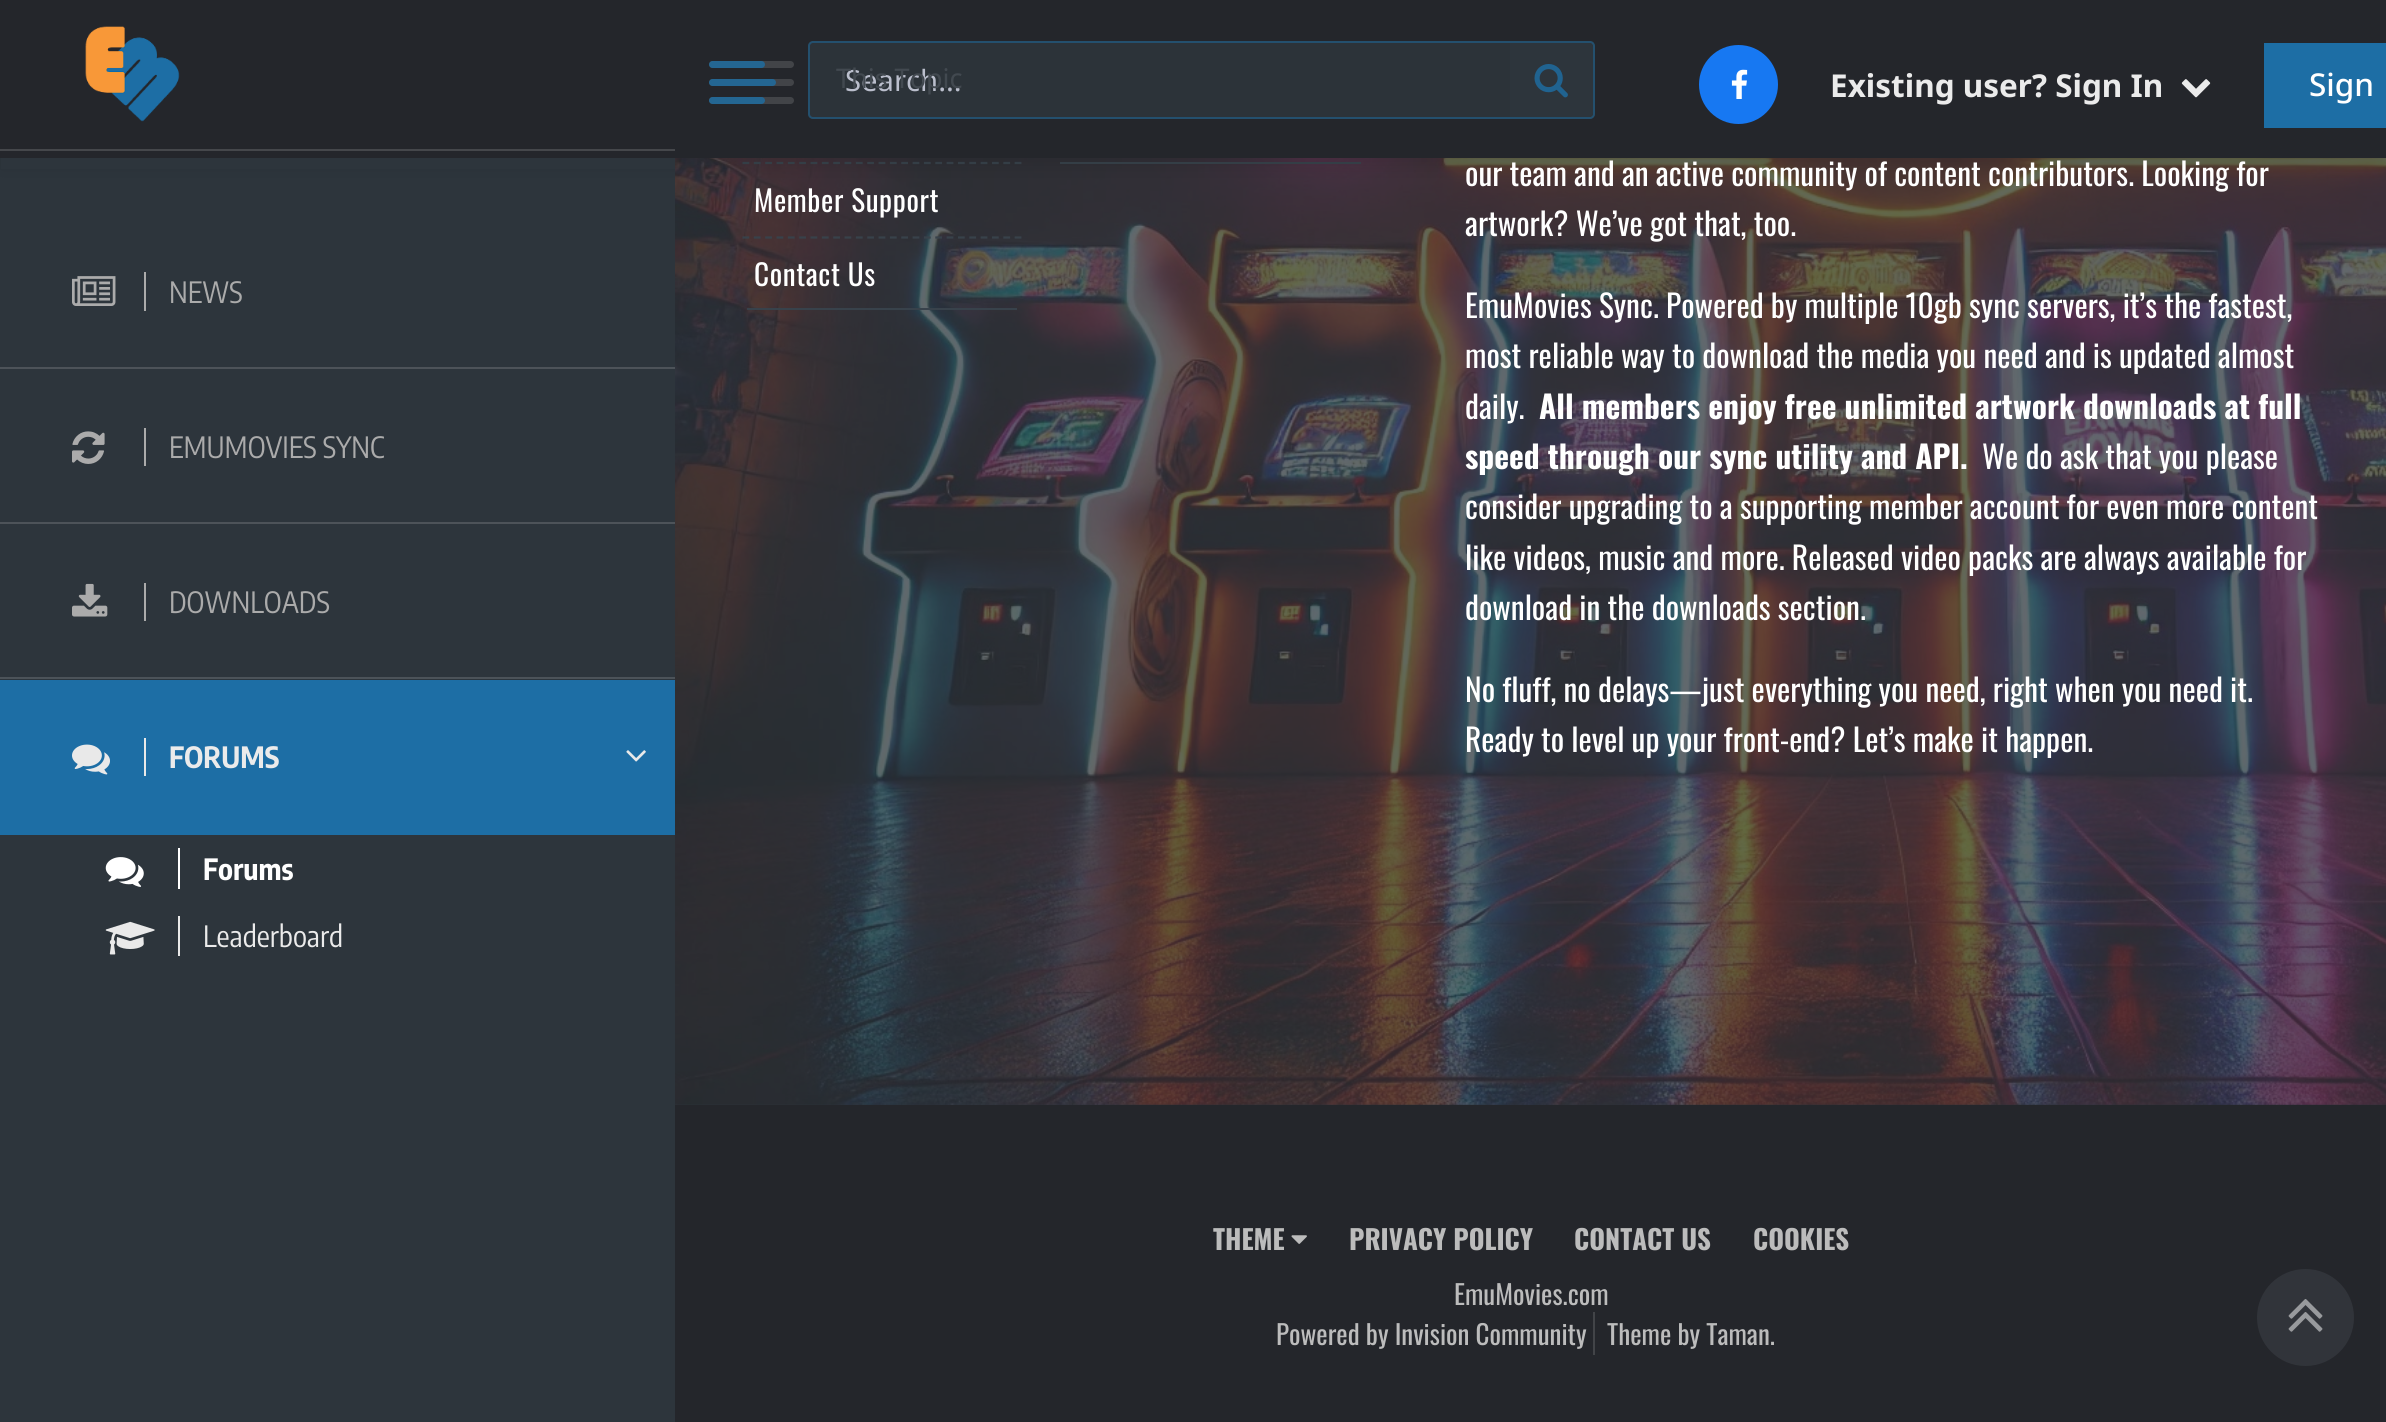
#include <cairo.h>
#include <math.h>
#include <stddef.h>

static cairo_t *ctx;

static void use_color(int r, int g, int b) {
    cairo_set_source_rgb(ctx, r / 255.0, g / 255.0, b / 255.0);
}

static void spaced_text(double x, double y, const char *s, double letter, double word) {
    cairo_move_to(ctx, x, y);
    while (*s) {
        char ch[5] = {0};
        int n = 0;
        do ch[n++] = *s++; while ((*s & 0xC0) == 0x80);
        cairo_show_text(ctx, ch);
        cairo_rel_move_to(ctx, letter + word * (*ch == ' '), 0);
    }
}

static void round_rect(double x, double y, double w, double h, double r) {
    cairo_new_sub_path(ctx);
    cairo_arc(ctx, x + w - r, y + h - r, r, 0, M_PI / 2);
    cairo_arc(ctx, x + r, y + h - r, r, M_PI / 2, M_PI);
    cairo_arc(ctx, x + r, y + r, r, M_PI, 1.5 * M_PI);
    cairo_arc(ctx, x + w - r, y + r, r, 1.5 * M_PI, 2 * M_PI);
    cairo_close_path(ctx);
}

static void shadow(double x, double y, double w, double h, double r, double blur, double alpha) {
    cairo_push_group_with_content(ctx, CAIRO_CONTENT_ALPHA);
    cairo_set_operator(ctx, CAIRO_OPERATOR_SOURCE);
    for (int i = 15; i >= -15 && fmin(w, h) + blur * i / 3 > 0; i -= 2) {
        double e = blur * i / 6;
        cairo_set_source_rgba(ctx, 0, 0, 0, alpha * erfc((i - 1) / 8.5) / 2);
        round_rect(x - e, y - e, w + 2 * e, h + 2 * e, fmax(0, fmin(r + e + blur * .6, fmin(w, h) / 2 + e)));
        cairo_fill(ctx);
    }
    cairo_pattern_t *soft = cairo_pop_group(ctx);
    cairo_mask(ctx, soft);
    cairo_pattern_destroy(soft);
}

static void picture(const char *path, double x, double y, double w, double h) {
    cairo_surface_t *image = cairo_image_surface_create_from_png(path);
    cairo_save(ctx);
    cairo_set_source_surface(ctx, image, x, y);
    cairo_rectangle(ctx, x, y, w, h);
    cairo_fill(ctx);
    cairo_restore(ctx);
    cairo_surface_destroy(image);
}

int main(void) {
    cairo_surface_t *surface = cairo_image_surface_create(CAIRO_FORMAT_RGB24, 2386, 1422);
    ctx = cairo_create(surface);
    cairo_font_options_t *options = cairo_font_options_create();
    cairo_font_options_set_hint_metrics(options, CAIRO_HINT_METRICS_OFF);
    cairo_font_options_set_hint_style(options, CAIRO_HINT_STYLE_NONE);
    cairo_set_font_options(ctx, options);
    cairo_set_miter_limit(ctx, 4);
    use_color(45, 53, 60);
    cairo_paint(ctx);
    picture("img12.png", 675, 158, 1711, 947);
    use_color(56, 66, 75);
    cairo_rectangle(ctx, 1060, 162, 301, 2);
    cairo_fill(ctx);
    cairo_new_path(ctx);
    cairo_move_to(ctx, 742.5, 163);
    cairo_line_to(ctx, 1021.5, 163);
    cairo_set_line_width(ctx, 2.2);
    cairo_set_dash(ctx, (double[]){6.75, 4.59}, 2, 0);
    cairo_stroke(ctx);
    use_color(0, 0, 0);
    shadow(0, 9, 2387, 158, 0, 9, 0.1);
    use_color(36, 38, 43);
    cairo_rectangle(ctx, 0, 0, 2386, 158);
    cairo_fill(ctx);
    picture("img1.png", 85, 26, 95, 96);
    use_color(69, 71, 75);
    cairo_rectangle(ctx, 0, 149, 675, 2);
    cairo_fill(ctx);
    use_color(66, 68, 72);
    round_rect(709, 61, 85, 7, 3.5);
    cairo_fill(ctx);
    cairo_set_source_rgba(ctx, 0.114, 0.431, 0.647, 0.8);
    round_rect(709, 61, 56, 7, 3.5);
    cairo_fill(ctx);
    use_color(66, 68, 72);
    round_rect(709, 79, 85, 7, 3.5);
    cairo_fill(ctx);
    cairo_set_source_rgba(ctx, 0.114, 0.431, 0.647, 0.8);
    round_rect(709, 79, 67, 7, 3.5);
    cairo_fill(ctx);
    use_color(66, 68, 72);
    round_rect(709, 97, 85, 7, 3.5);
    cairo_fill(ctx);
    cairo_set_source_rgba(ctx, 0.114, 0.431, 0.647, 0.8);
    round_rect(709, 97, 56, 7, 3.5);
    cairo_fill(ctx);
    use_color(44, 51, 57);
    round_rect(808, 41, 787, 78, 5);
    cairo_fill(ctx);
    round_rect(809, 42, 785, 76, 4);
    cairo_set_source_rgba(ctx, 0.114, 0.431, 0.647, 0.5);
    cairo_set_line_width(ctx, 2);
    cairo_set_dash(ctx, NULL, 0, 0);
    cairo_stroke(ctx);
    cairo_select_font_face(ctx, "Noto Sans", CAIRO_FONT_SLANT_NORMAL, CAIRO_FONT_WEIGHT_NORMAL);
    cairo_set_font_size(ctx, 29.25);
    use_color(187, 191, 205);
    cairo_move_to(ctx, 845, 91);
    cairo_show_text(ctx, "Search...");
    cairo_set_font_size(ctx, 27);
    use_color(66, 73, 80);
    cairo_move_to(ctx, 836, 88);
    cairo_show_text(ctx, "This Topic");
    use_color(45, 53, 60);
    cairo_new_path(ctx);
    cairo_move_to(ctx, 1510, 43);
    cairo_line_to(ctx, 1588, 43);
    cairo_curve_to(ctx, 1591, 43, 1593, 45, 1593, 48);
    cairo_line_to(ctx, 1593, 112);
    cairo_curve_to(ctx, 1593, 115, 1591, 117, 1588, 117);
    cairo_line_to(ctx, 1510, 117);
    cairo_close_path(ctx);
    cairo_fill(ctx);
    picture("img2.png", 1534, 64, 34, 34);
    use_color(23, 120, 242);
    cairo_arc(ctx, 1738.5, 84.5, 39.5, 0, 2 * M_PI);
    cairo_fill(ctx);
    picture("img3.png", 1731, 69, 17, 30);
    cairo_select_font_face(ctx, "Noto Sans", CAIRO_FONT_SLANT_NORMAL, CAIRO_FONT_WEIGHT_BOLD);
    cairo_set_font_size(ctx, 31.5);
    use_color(235, 235, 235);
    cairo_move_to(ctx, 1830, 97);
    cairo_show_text(ctx, "Existing user? Sign In");
    picture("img4.png", 2181, 79, 30, 19);
    use_color(29, 110, 165);
    cairo_rectangle(ctx, 2264, 43, 122, 85);
    cairo_fill(ctx);
    cairo_select_font_face(ctx, "Noto Sans Medium", CAIRO_FONT_SLANT_NORMAL, CAIRO_FONT_WEIGHT_NORMAL);
    use_color(255, 255, 255);
    cairo_move_to(ctx, 2309, 96);
    cairo_show_text(ctx, "Sign");
    use_color(45, 53, 60);
    cairo_rectangle(ctx, 1, 158, 674, 11);
    cairo_fill(ctx);
    use_color(171, 171, 171);
    cairo_rectangle(ctx, 144, 272, 2, 39);
    cairo_fill(ctx);
    picture("img5.png", 72, 276, 44, 30);
    cairo_select_font_face(ctx, "Encode Sans Condensed", CAIRO_FONT_SLANT_NORMAL, CAIRO_FONT_WEIGHT_NORMAL);
    cairo_set_font_size(ctx, 29.25);
    cairo_move_to(ctx, 169, 303);
    cairo_show_text(ctx, "NEWS");
    use_color(77, 83, 89);
    cairo_rectangle(ctx, 0, 367, 675, 2);
    cairo_fill(ctx);
    use_color(171, 171, 171);
    cairo_rectangle(ctx, 144, 428, 2, 38);
    cairo_fill(ctx);
    picture("img6.png", 72, 431, 33, 33);
    cairo_move_to(ctx, 169, 458);
    cairo_show_text(ctx, "EMUMOVIES SYNC");
    use_color(77, 83, 89);
    cairo_rectangle(ctx, 0, 522, 675, 2);
    cairo_fill(ctx);
    use_color(171, 171, 171);
    cairo_rectangle(ctx, 144, 583, 2, 38);
    cairo_fill(ctx);
    picture("img7.png", 72, 583, 36, 34);
    cairo_move_to(ctx, 169, 613);
    cairo_show_text(ctx, "DOWNLOADS");
    use_color(76, 83, 89);
    cairo_rectangle(ctx, 0, 677, 675, 2);
    cairo_fill(ctx);
    use_color(29, 110, 165);
    cairo_rectangle(ctx, 0, 680, 675, 155);
    cairo_fill(ctx);
    use_color(233, 233, 233);
    cairo_rectangle(ctx, 144, 738, 2, 38);
    cairo_fill(ctx);
    picture("img8.png", 72, 744, 38, 31);
    cairo_select_font_face(ctx, "Encode Sans Condensed", CAIRO_FONT_SLANT_NORMAL, CAIRO_FONT_WEIGHT_BOLD);
    use_color(235, 235, 235);
    cairo_move_to(ctx, 169, 768);
    cairo_show_text(ctx, "FORUMS");
    picture("img9.png", 626, 750, 20, 12);
    use_color(255, 255, 255);
    cairo_rectangle(ctx, 178, 848, 2, 41);
    cairo_fill(ctx);
    picture("img10.png", 105, 857, 39, 30);
    cairo_move_to(ctx, 203, 880);
    cairo_show_text(ctx, "Forums");
    use_color(233, 233, 233);
    cairo_rectangle(ctx, 178, 916, 2, 40);
    cairo_fill(ctx);
    picture("img11.png", 105, 921, 50, 34);
    cairo_select_font_face(ctx, "Encode Sans Condensed", CAIRO_FONT_SLANT_NORMAL, CAIRO_FONT_WEIGHT_NORMAL);
    use_color(235, 235, 235);
    cairo_move_to(ctx, 203, 947);
    cairo_show_text(ctx, "Leaderboard");
    cairo_new_path(ctx);
    cairo_move_to(ctx, 742.5, 237.5);
    cairo_line_to(ctx, 1021.5, 237.5);
    use_color(56, 66, 75);
    cairo_set_line_width(ctx, 2.2);
    cairo_set_dash(ctx, (double[]){6.75, 4.59}, 2, 0);
    cairo_stroke(ctx);
    cairo_select_font_face(ctx, "Oswald", CAIRO_FONT_SLANT_NORMAL, CAIRO_FONT_WEIGHT_NORMAL);
    use_color(255, 255, 255);
    spaced_text(754, 212, "Member Support", 0.6, 0);
    use_color(56, 66, 75);
    cairo_rectangle(ctx, 747, 308, 270, 2);
    cairo_fill(ctx);
    use_color(255, 255, 255);
    spaced_text(754, 286, "Contact Us", 0.6, 0);
    cairo_set_font_size(ctx, 31.5);
    cairo_move_to(ctx, 1465, 186);
    cairo_show_text(ctx, "our team and an active community of content contributors. Looking for");
    cairo_move_to(ctx, 1465, 236);
    cairo_show_text(ctx, "artwork? We’ve got that, too.");
    cairo_move_to(ctx, 1465, 318);
    cairo_show_text(ctx, "EmuMovies Sync. Powered by multiple 10gb sync servers, it’s the fastest,");
    cairo_move_to(ctx, 1465, 368);
    cairo_show_text(ctx, "most reliable way to download the media you need and is updated almost");
    cairo_move_to(ctx, 1465, 419);
    cairo_show_text(ctx, "daily.");
    cairo_select_font_face(ctx, "Oswald", CAIRO_FONT_SLANT_NORMAL, CAIRO_FONT_WEIGHT_BOLD);
    cairo_move_to(ctx, 1539, 419);
    cairo_show_text(ctx, "All members enjoy free unlimited artwork downloads at full");
    cairo_move_to(ctx, 1465, 469);
    cairo_show_text(ctx, "speed through our sync utility and API.");
    cairo_select_font_face(ctx, "Oswald", CAIRO_FONT_SLANT_NORMAL, CAIRO_FONT_WEIGHT_NORMAL);
    cairo_move_to(ctx, 1982, 469);
    cairo_show_text(ctx, "We do ask that you please");
    cairo_move_to(ctx, 1465, 519);
    cairo_show_text(ctx, "consider upgrading to a supporting member account for even more content");
    cairo_move_to(ctx, 1465, 570);
    cairo_show_text(ctx, "like videos, music and more. Released video packs are always available for");
    cairo_move_to(ctx, 1465, 620);
    cairo_show_text(ctx, "download in the downloads section.");
    cairo_move_to(ctx, 1465, 702);
    cairo_show_text(ctx, "No fluff, no delays—just everything you need, right when you need it.");
    cairo_move_to(ctx, 1465, 752);
    cairo_show_text(ctx, "Ready to level up your front-end? Let’s make it happen.");
    use_color(36, 38, 43);
    cairo_rectangle(ctx, 675, 1105, 1711, 317);
    cairo_fill(ctx);
    cairo_select_font_face(ctx, "Oswald", CAIRO_FONT_SLANT_NORMAL, CAIRO_FONT_WEIGHT_BOLD);
    cairo_set_font_size(ctx, 27);
    use_color(188, 188, 188);
    cairo_move_to(ctx, 1213, 1250);
    cairo_show_text(ctx, "THEME");
    picture("img13.png", 1291, 1235, 16, 9);
    cairo_move_to(ctx, 1349, 1250);
    cairo_show_text(ctx, "PRIVACY POLICY");
    cairo_move_to(ctx, 1574, 1250);
    cairo_show_text(ctx, "CONTACT US");
    cairo_move_to(ctx, 1753, 1250);
    cairo_show_text(ctx, "COOKIES");
    cairo_select_font_face(ctx, "Oswald", CAIRO_FONT_SLANT_NORMAL, CAIRO_FONT_WEIGHT_NORMAL);
    cairo_move_to(ctx, 1454, 1305);
    cairo_show_text(ctx, "EmuMovies.com");
    cairo_move_to(ctx, 1276, 1345);
    cairo_show_text(ctx, "Powered by Invision Community");
    cairo_move_to(ctx, 1607, 1345);
    cairo_show_text(ctx, "Theme by Taman.");
    use_color(66, 68, 72);
    cairo_rectangle(ctx, 1593, 1312, 2, 43);
    cairo_fill(ctx);
    use_color(49, 52, 58);
    cairo_arc(ctx, 2305.5, 1317.5, 48.5, 0, 2 * M_PI);
    cairo_fill(ctx);
    picture("img14.png", 2288, 1299, 35, 33);
    cairo_surface_write_to_png(surface, "result.png");
    cairo_font_options_destroy(options);
    cairo_destroy(ctx);
    cairo_surface_destroy(surface);
    return 0;
}
